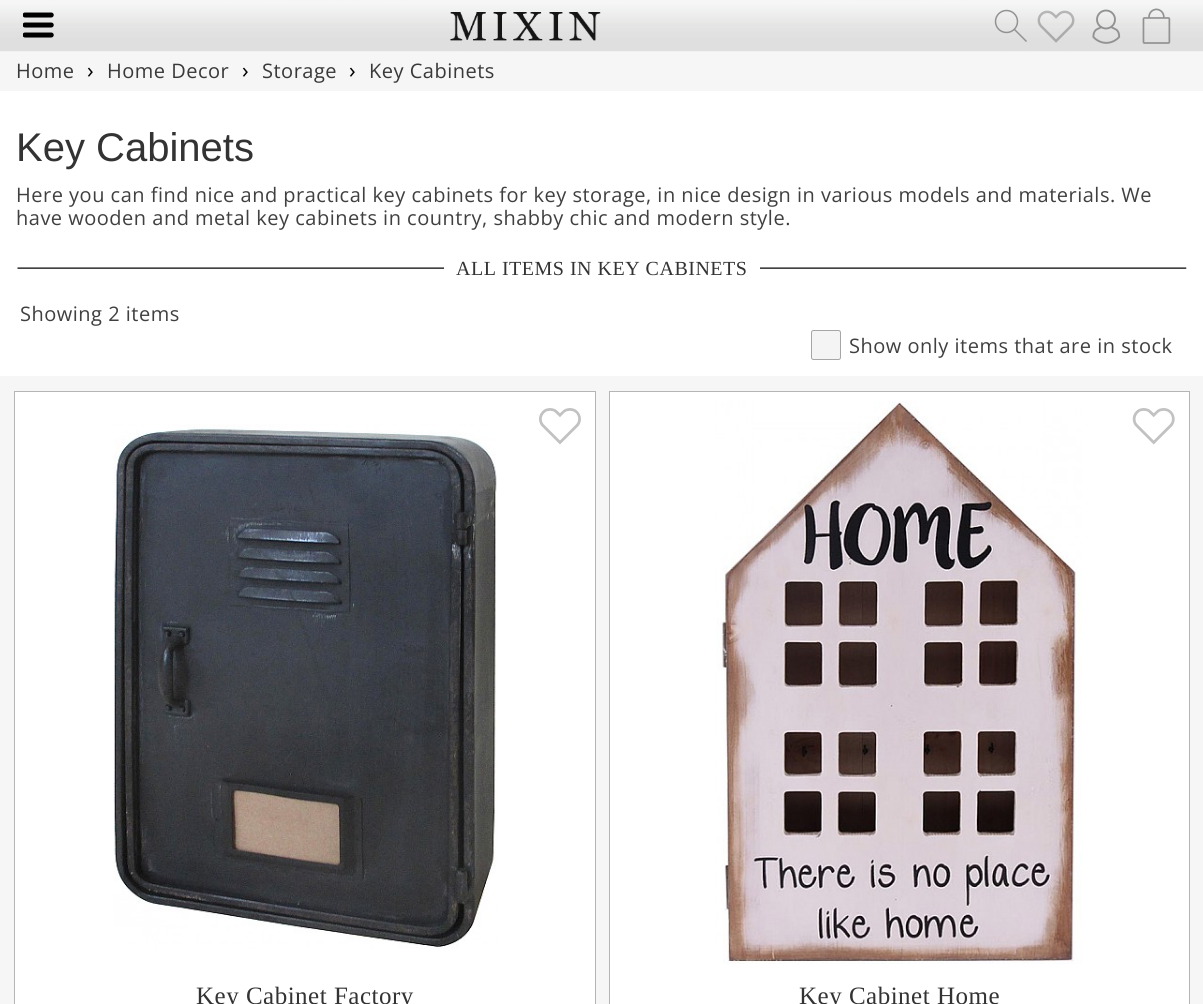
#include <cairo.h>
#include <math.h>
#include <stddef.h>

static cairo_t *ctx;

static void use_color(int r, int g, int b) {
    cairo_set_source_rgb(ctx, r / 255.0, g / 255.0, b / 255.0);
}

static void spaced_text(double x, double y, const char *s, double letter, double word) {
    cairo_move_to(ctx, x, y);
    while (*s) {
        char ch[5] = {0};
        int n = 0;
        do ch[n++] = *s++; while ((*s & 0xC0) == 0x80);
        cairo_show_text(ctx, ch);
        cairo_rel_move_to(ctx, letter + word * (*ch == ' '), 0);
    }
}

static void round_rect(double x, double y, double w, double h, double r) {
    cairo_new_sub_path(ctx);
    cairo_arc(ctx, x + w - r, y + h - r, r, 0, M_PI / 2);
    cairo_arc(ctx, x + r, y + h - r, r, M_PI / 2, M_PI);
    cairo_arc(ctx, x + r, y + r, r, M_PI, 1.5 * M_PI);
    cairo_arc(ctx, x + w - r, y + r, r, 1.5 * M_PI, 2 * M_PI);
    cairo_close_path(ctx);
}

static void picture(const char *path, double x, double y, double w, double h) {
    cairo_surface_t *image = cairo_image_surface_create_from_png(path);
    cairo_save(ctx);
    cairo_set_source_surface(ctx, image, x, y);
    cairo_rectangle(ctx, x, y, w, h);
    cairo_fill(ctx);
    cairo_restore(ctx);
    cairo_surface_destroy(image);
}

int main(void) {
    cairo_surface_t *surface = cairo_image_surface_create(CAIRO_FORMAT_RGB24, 1203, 1004);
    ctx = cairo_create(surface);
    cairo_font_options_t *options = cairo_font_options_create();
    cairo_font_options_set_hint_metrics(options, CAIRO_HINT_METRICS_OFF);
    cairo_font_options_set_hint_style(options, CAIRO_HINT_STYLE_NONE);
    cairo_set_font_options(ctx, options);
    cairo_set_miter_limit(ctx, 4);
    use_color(255, 255, 255);
    cairo_paint(ctx);
    picture("img1.png", 0, 0, 1203, 51);
    use_color(246, 246, 246);
    cairo_rectangle(ctx, 0, 51, 1203, 40);
    cairo_fill(ctx);
    picture("img2.png", 0, 0, 1203, 52);
    picture("img3.png", 23, 12, 31, 26);
    picture("img4.png", 450, 12, 151, 29);
    cairo_arc(ctx, 1006.5, 21.5, 11, 0, 2 * M_PI);
    use_color(146, 146, 146);
    cairo_set_line_width(ctx, 1.5);
    cairo_stroke(ctx);
    cairo_new_path(ctx);
    cairo_move_to(ctx, 1014, 29);
    cairo_line_to(ctx, 1026.5, 41.5);
    cairo_stroke(ctx);
    picture("img5.png", 1037, 10, 38, 33);
    picture("img6.png", 1092, 9, 29, 35);
    picture("img7.png", 1142, 8, 29, 36);
    cairo_select_font_face(ctx, "Open Sans", CAIRO_FONT_SLANT_NORMAL, CAIRO_FONT_WEIGHT_NORMAL);
    cairo_set_font_size(ctx, 20);
    use_color(57, 57, 57);
    spaced_text(16, 78, "Home", 0.5, 0);
    cairo_set_font_size(ctx, 22);
    use_color(0, 0, 0);
    spaced_text(87, 78, "›", 0.5, 0);
    cairo_set_font_size(ctx, 20);
    use_color(57, 57, 57);
    spaced_text(107, 78, "Home Decor", 0.5, 0);
    cairo_set_font_size(ctx, 22);
    use_color(0, 0, 0);
    spaced_text(242, 78, "›", 0.5, 0);
    cairo_set_font_size(ctx, 20);
    use_color(57, 57, 57);
    spaced_text(262, 78, "Storage", 0.5, 0);
    cairo_set_font_size(ctx, 22);
    use_color(0, 0, 0);
    spaced_text(349, 78, "›", 0.5, 0);
    cairo_set_font_size(ctx, 20);
    use_color(57, 57, 57);
    spaced_text(369, 78, "Key Cabinets", 0.5, 0);
    cairo_select_font_face(ctx, "Liberation Sans", CAIRO_FONT_SLANT_NORMAL, CAIRO_FONT_WEIGHT_NORMAL);
    cairo_set_font_size(ctx, 40);
    use_color(51, 51, 51);
    cairo_move_to(ctx, 16, 161);
    cairo_show_text(ctx, "Key Cabinets");
    cairo_select_font_face(ctx, "Open Sans", CAIRO_FONT_SLANT_NORMAL, CAIRO_FONT_WEIGHT_NORMAL);
    cairo_set_font_size(ctx, 20);
    use_color(64, 64, 64);
    spaced_text(16, 202, "Here you can find nice and practical key cabinets for key storage, in nice design in various models and materials. We", 0.5, 0);
    spaced_text(16, 225, "have wooden and metal key cabinets in country, shabby chic and modern style.", 0.5, 0);
    picture("img8.png", 17, 267, 1170, 2);
    use_color(255, 255, 255);
    cairo_rectangle(ctx, 444, 267, 316, 2);
    cairo_fill(ctx);
    cairo_select_font_face(ctx, "Liberation Serif", CAIRO_FONT_SLANT_NORMAL, CAIRO_FONT_WEIGHT_NORMAL);
    use_color(51, 51, 51);
    spaced_text(456, 275, "ALL ITEMS IN KEY CABINETS", 0.5, 0);
    cairo_select_font_face(ctx, "Open Sans", CAIRO_FONT_SLANT_NORMAL, CAIRO_FONT_WEIGHT_NORMAL);
    use_color(64, 64, 64);
    spaced_text(20, 321, "Showing 2 items", 0.5, 0);
    use_color(244, 244, 244);
    round_rect(811.5, 330.5, 29, 29, 2);
    cairo_fill_preserve(ctx);
    use_color(166, 166, 166);
    cairo_set_line_width(ctx, 1);
    cairo_stroke(ctx);
    use_color(64, 64, 64);
    spaced_text(849, 353, "Show only items that are in stock", 0.5, 0);
    use_color(246, 246, 246);
    cairo_rectangle(ctx, 0, 376, 1203, 628);
    cairo_fill(ctx);
    use_color(255, 255, 255);
    cairo_rectangle(ctx, 14.5, 391.5, 581, 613);
    cairo_fill_preserve(ctx);
    use_color(181, 181, 181);
    cairo_stroke(ctx);
    picture("img9.png", 113, 424, 384, 525);
    picture("img10.png", 539, 408, 42, 37);
    cairo_select_font_face(ctx, "Liberation Serif", CAIRO_FONT_SLANT_NORMAL, CAIRO_FONT_WEIGHT_NORMAL);
    cairo_set_font_size(ctx, 25);
    use_color(51, 51, 51);
    spaced_text(196, 1004, "Key Cabinet Factory", 0.5, 0);
    use_color(255, 255, 255);
    cairo_rectangle(ctx, 609.5, 391.5, 580, 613);
    cairo_fill_preserve(ctx);
    use_color(181, 181, 181);
    cairo_stroke(ctx);
    picture("img11.png", 716, 401, 366, 563);
    picture("img12.png", 1132, 408, 43, 37);
    use_color(51, 51, 51);
    spaced_text(799, 1004, "Key Cabinet Home", 0.5, 0);
    cairo_surface_write_to_png(surface, "result.png");
    cairo_font_options_destroy(options);
    cairo_destroy(ctx);
    cairo_surface_destroy(surface);
    return 0;
}
